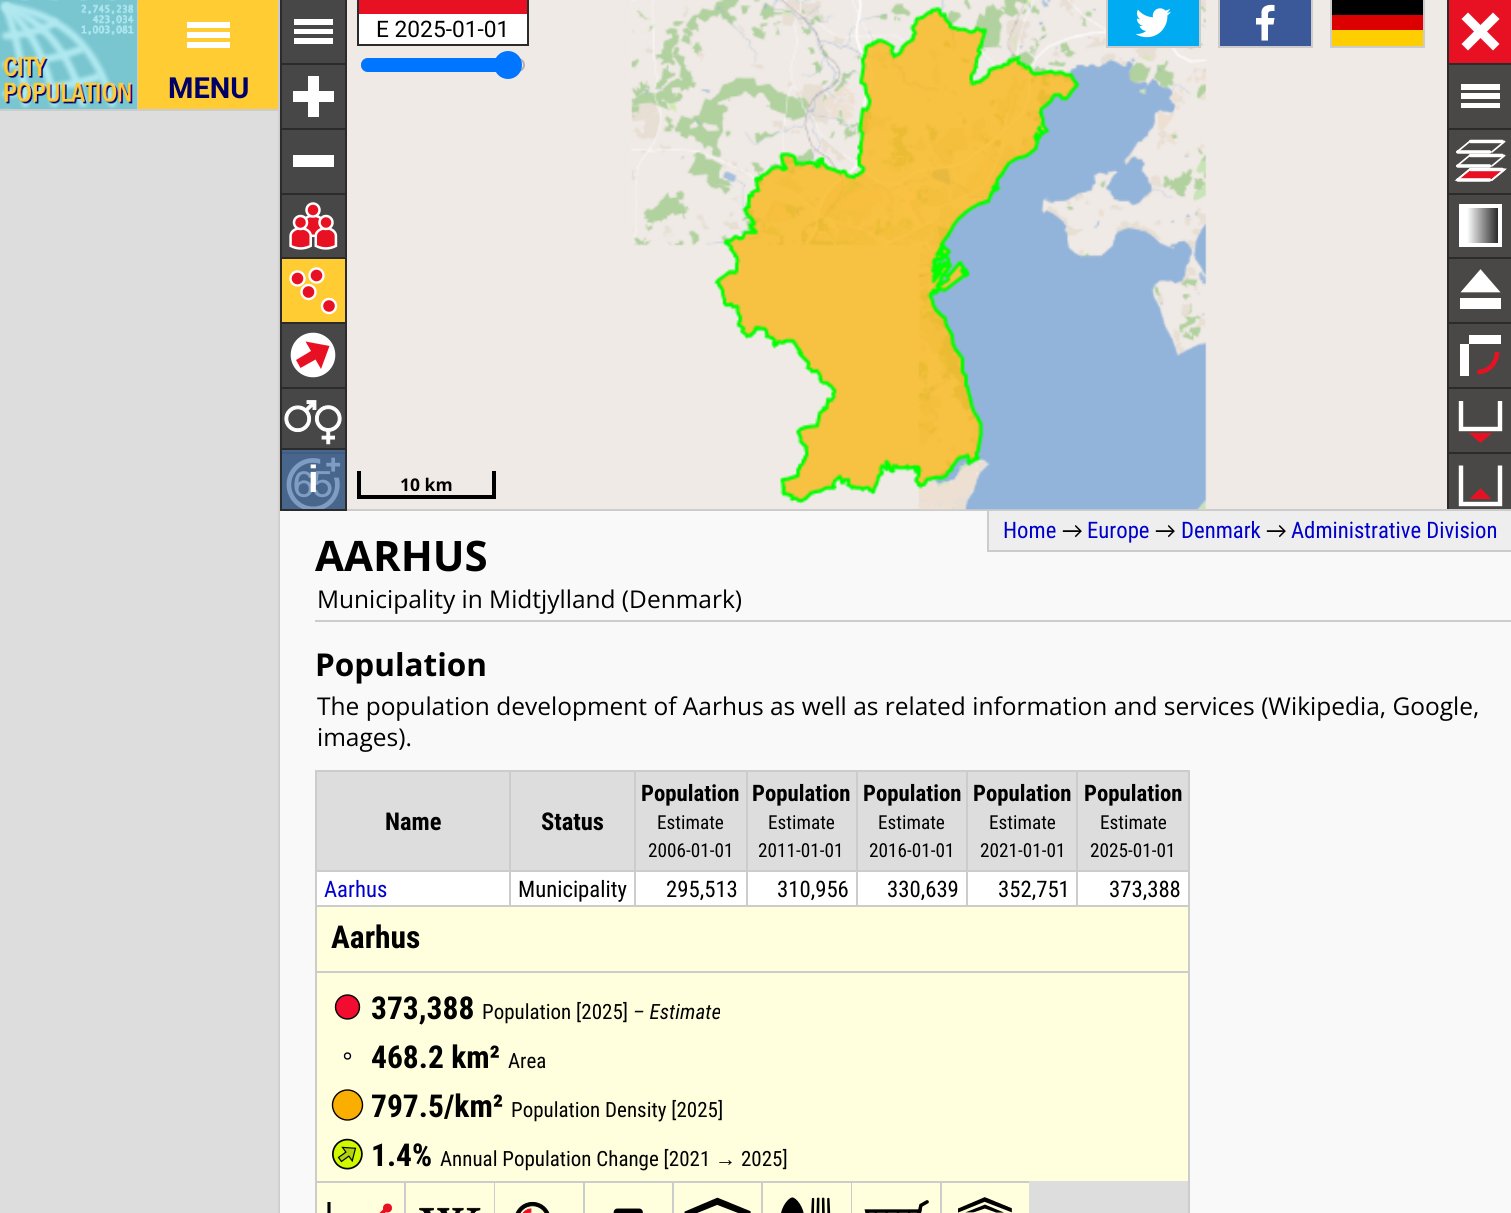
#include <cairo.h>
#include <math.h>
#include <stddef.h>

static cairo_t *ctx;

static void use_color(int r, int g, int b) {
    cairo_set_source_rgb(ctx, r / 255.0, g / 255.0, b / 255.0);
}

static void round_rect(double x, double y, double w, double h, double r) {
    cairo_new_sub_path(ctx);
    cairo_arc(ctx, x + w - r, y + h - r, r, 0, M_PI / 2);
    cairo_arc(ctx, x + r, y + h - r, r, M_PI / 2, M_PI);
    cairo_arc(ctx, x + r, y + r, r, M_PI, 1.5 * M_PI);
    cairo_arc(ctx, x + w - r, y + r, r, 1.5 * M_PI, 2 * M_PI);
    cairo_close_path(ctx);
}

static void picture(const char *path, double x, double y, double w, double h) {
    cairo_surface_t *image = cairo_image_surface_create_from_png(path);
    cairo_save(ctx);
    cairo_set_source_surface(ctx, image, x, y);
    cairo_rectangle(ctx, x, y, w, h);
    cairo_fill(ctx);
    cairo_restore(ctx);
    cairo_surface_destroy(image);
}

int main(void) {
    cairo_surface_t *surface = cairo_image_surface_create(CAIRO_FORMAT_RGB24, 1511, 1213);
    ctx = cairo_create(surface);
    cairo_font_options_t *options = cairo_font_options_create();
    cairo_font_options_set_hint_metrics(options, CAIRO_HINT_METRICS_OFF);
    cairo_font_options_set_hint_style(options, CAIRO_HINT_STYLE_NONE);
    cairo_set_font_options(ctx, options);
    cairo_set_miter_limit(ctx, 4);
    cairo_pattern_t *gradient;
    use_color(249, 249, 249);
    cairo_paint(ctx);
    picture("img1.png", 0, 0, 137, 109);
    use_color(204, 204, 204);
    cairo_rectangle(ctx, 137, 0, 1, 110);
    cairo_fill(ctx);
    cairo_rectangle(ctx, 0, 109, 138, 2);
    cairo_fill(ctx);
    use_color(255, 204, 51);
    cairo_rectangle(ctx, 138, 0, 140, 109);
    cairo_fill(ctx);
    use_color(204, 204, 204);
    cairo_rectangle(ctx, 278, 0, 2, 110);
    cairo_fill(ctx);
    cairo_rectangle(ctx, 138, 109, 142, 2);
    cairo_fill(ctx);
    use_color(255, 255, 255);
    cairo_rectangle(ctx, 187, 22, 43, 6);
    cairo_fill(ctx);
    cairo_rectangle(ctx, 187, 32, 43, 6);
    cairo_fill(ctx);
    cairo_rectangle(ctx, 187, 42, 43, 6);
    cairo_fill(ctx);
    cairo_select_font_face(ctx, "Roboto", CAIRO_FONT_SLANT_NORMAL, CAIRO_FONT_WEIGHT_BOLD);
    cairo_set_font_size(ctx, 29);
    use_color(0, 0, 102);
    cairo_move_to(ctx, 168, 98);
    cairo_show_text(ctx, "MENU");
    use_color(240, 234, 230);
    cairo_rectangle(ctx, 282, 0, 1165, 509);
    cairo_fill(ctx);
    cairo_rectangle(ctx, 281, -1, 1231, 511);
    use_color(204, 204, 204);
    cairo_stroke(ctx);
    cairo_set_source_rgba(ctx, 0.169, 0.169, 0.169, 0.4);
    cairo_rectangle(ctx, 282, 0, 63, 509);
    cairo_fill(ctx);
    cairo_set_source_rgba(ctx, 0.169, 0.169, 0.169, 0.75);
    cairo_rectangle(ctx, 282, 0, 63, 63);
    cairo_fill(ctx);
    use_color(43, 43, 43);
    cairo_rectangle(ctx, 280, 63, 67, 2);
    cairo_fill(ctx);
    cairo_rectangle(ctx, 280, 0, 2, 63);
    cairo_fill(ctx);
    use_color(255, 255, 255);
    cairo_rectangle(ctx, 294, 19, 39, 6);
    cairo_fill(ctx);
    use_color(43, 43, 43);
    cairo_rectangle(ctx, 345, 0, 2, 63);
    cairo_fill(ctx);
    use_color(255, 255, 255);
    cairo_rectangle(ctx, 294, 29, 39, 5);
    cairo_fill(ctx);
    cairo_rectangle(ctx, 294, 38, 39, 6);
    cairo_fill(ctx);
    cairo_set_source_rgba(ctx, 0.169, 0.169, 0.169, 0.75);
    cairo_rectangle(ctx, 282, 65, 63, 63);
    cairo_fill(ctx);
    use_color(43, 43, 43);
    cairo_rectangle(ctx, 280, 128, 67, 2);
    cairo_fill(ctx);
    cairo_rectangle(ctx, 280, 65, 2, 63);
    cairo_fill(ctx);
    use_color(255, 255, 255);
    cairo_rectangle(ctx, 293, 91, 41, 11);
    cairo_fill(ctx);
    cairo_rectangle(ctx, 308, 76, 11, 41);
    cairo_fill(ctx);
    use_color(43, 43, 43);
    cairo_rectangle(ctx, 345, 65, 2, 63);
    cairo_fill(ctx);
    cairo_set_source_rgba(ctx, 0.169, 0.169, 0.169, 0.75);
    cairo_rectangle(ctx, 282, 130, 63, 63);
    cairo_fill(ctx);
    use_color(43, 43, 43);
    cairo_rectangle(ctx, 280, 193, 67, 2);
    cairo_fill(ctx);
    cairo_rectangle(ctx, 280, 130, 2, 63);
    cairo_fill(ctx);
    use_color(255, 255, 255);
    cairo_rectangle(ctx, 293, 155, 41, 12);
    cairo_fill(ctx);
    use_color(43, 43, 43);
    cairo_rectangle(ctx, 345, 130, 2, 63);
    cairo_fill(ctx);
    cairo_set_source_rgba(ctx, 0.169, 0.169, 0.169, 0.75);
    cairo_rectangle(ctx, 282, 195, 63, 62);
    cairo_fill(ctx);
    use_color(43, 43, 43);
    cairo_rectangle(ctx, 280, 257, 67, 2);
    cairo_fill(ctx);
    cairo_rectangle(ctx, 280, 194, 2, 63);
    cairo_fill(ctx);
    picture("img2.png", 289, 202, 49, 48);
    cairo_rectangle(ctx, 345, 194, 2, 63);
    cairo_fill(ctx);
    use_color(255, 204, 51);
    cairo_rectangle(ctx, 282, 259, 63, 63);
    cairo_fill(ctx);
    use_color(43, 43, 43);
    cairo_rectangle(ctx, 280, 322, 67, 2);
    cairo_fill(ctx);
    cairo_rectangle(ctx, 280, 259, 2, 63);
    cairo_fill(ctx);
    use_color(232, 17, 35);
    cairo_arc(ctx, 297.5, 278.5, 7, 0, 2 * M_PI);
    cairo_fill_preserve(ctx);
    use_color(255, 255, 255);
    cairo_set_line_width(ctx, 2.4);
    cairo_stroke(ctx);
    use_color(232, 17, 35);
    cairo_arc(ctx, 316.5, 275.5, 7, 0, 2 * M_PI);
    cairo_fill_preserve(ctx);
    use_color(255, 255, 255);
    cairo_stroke(ctx);
    use_color(43, 43, 43);
    cairo_rectangle(ctx, 345, 259, 2, 63);
    cairo_fill(ctx);
    use_color(232, 17, 35);
    cairo_arc(ctx, 308.5, 292, 7, 0, 2 * M_PI);
    cairo_fill_preserve(ctx);
    use_color(255, 255, 255);
    cairo_stroke(ctx);
    use_color(232, 17, 35);
    cairo_arc(ctx, 329, 306, 7, 0, 2 * M_PI);
    cairo_fill_preserve(ctx);
    use_color(255, 255, 255);
    cairo_stroke(ctx);
    cairo_set_source_rgba(ctx, 0.169, 0.169, 0.169, 0.75);
    cairo_rectangle(ctx, 282, 324, 63, 63);
    cairo_fill(ctx);
    use_color(43, 43, 43);
    cairo_rectangle(ctx, 280, 387, 67, 2);
    cairo_fill(ctx);
    cairo_rectangle(ctx, 280, 324, 2, 63);
    cairo_fill(ctx);
    use_color(255, 255, 255);
    cairo_arc(ctx, 313, 355, 21.5, 0, 2 * M_PI);
    cairo_fill_preserve(ctx);
    cairo_set_line_width(ctx, 1.6);
    cairo_stroke(ctx);
    use_color(43, 43, 43);
    cairo_rectangle(ctx, 345, 324, 2, 63);
    cairo_fill(ctx);
    use_color(232, 17, 35);
    cairo_new_path(ctx);
    cairo_move_to(ctx, 296, 360);
    cairo_line_to(ctx, 311, 351);
    cairo_line_to(ctx, 305.5, 341.5);
    cairo_line_to(ctx, 329.5, 346);
    cairo_line_to(ctx, 321, 369);
    cairo_line_to(ctx, 315.5, 359.5);
    cairo_line_to(ctx, 300.5, 368);
    cairo_close_path(ctx);
    cairo_fill(ctx);
    cairo_set_source_rgba(ctx, 0.169, 0.169, 0.169, 0.75);
    cairo_rectangle(ctx, 282, 389, 63, 63);
    cairo_fill(ctx);
    use_color(43, 43, 43);
    cairo_rectangle(ctx, 280, 452, 67, 2);
    cairo_fill(ctx);
    cairo_rectangle(ctx, 280, 389, 2, 63);
    cairo_fill(ctx);
    picture("img3.png", 284, 400, 58, 45);
    cairo_rectangle(ctx, 345, 389, 2, 63);
    cairo_fill(ctx);
    cairo_set_source_rgba(ctx, 0.169, 0.169, 0.169, 0.75);
    cairo_rectangle(ctx, 282, 454, 63, 55);
    cairo_fill(ctx);
    picture("img4.png", 286, 457, 55, 52);
    use_color(232, 17, 35);
    cairo_rectangle(ctx, 359, 0, 168, 14);
    cairo_fill(ctx);
    use_color(43, 43, 43);
    cairo_rectangle(ctx, 527, 0, 2, 46);
    cairo_fill(ctx);
    cairo_rectangle(ctx, 357, 44, 172, 2);
    cairo_fill(ctx);
    cairo_rectangle(ctx, 357, 0, 2, 46);
    cairo_fill(ctx);
    use_color(255, 255, 255);
    cairo_rectangle(ctx, 359, 14, 168, 30);
    cairo_fill(ctx);
    cairo_select_font_face(ctx, "Roboto", CAIRO_FONT_SLANT_NORMAL, CAIRO_FONT_WEIGHT_NORMAL);
    cairo_set_font_size(ctx, 22.75);
    use_color(0, 0, 0);
    cairo_move_to(ctx, 376, 37);
    cairo_show_text(ctx, "E 2025-01-01");
    use_color(239, 239, 239);
    round_rect(362, 59, 162, 12, 6);
    cairo_fill_preserve(ctx);
    use_color(178, 178, 178);
    cairo_set_line_width(ctx, 2);
    cairo_stroke(ctx);
    use_color(0, 117, 255);
    cairo_new_path(ctx);
    cairo_move_to(ctx, 368, 58);
    cairo_line_to(ctx, 508, 58);
    cairo_line_to(ctx, 508, 72);
    cairo_line_to(ctx, 368, 72);
    cairo_curve_to(ctx, 364, 72, 361, 69, 361, 65);
    cairo_curve_to(ctx, 361, 61, 364, 58, 368, 58);
    cairo_close_path(ctx);
    cairo_fill(ctx);
    cairo_arc(ctx, 508, 65, 14, 0, 2 * M_PI);
    cairo_fill(ctx);
    use_color(73, 72, 71);
    cairo_rectangle(ctx, 1449, 454, 62, 55);
    cairo_fill(ctx);
    cairo_rectangle(ctx, 1449, 195, 62, 62);
    cairo_fill(ctx);
    use_color(232, 17, 35);
    cairo_rectangle(ctx, 1449, 0, 62, 63);
    cairo_fill(ctx);
    use_color(43, 43, 43);
    cairo_rectangle(ctx, 1447, 63, 64, 2);
    cairo_fill(ctx);
    cairo_rectangle(ctx, 1447, 0, 2, 63);
    cairo_fill(ctx);
    use_color(255, 255, 255);
    cairo_new_path(ctx);
    cairo_move_to(ctx, 1468, 12.5);
    cairo_line_to(ctx, 1480.5, 25);
    cairo_line_to(ctx, 1493, 12.5);
    cairo_line_to(ctx, 1499.5, 19);
    cairo_line_to(ctx, 1487, 31.5);
    cairo_line_to(ctx, 1499.5, 44);
    cairo_line_to(ctx, 1493, 50.5);
    cairo_line_to(ctx, 1480.5, 38);
    cairo_line_to(ctx, 1468, 50.5);
    cairo_line_to(ctx, 1461.5, 44);
    cairo_line_to(ctx, 1474, 31.5);
    cairo_line_to(ctx, 1461.5, 19);
    cairo_close_path(ctx);
    cairo_fill(ctx);
    use_color(73, 72, 71);
    cairo_rectangle(ctx, 1449, 65, 62, 63);
    cairo_fill(ctx);
    use_color(43, 43, 43);
    cairo_rectangle(ctx, 1447, 128, 64, 2);
    cairo_fill(ctx);
    cairo_rectangle(ctx, 1447, 65, 2, 63);
    cairo_fill(ctx);
    use_color(255, 255, 255);
    cairo_rectangle(ctx, 1461, 84, 39, 6);
    cairo_fill(ctx);
    cairo_rectangle(ctx, 1461, 93, 39, 6);
    cairo_fill(ctx);
    cairo_rectangle(ctx, 1461, 103, 39, 5);
    cairo_fill(ctx);
    use_color(73, 72, 71);
    cairo_rectangle(ctx, 1449, 130, 62, 63);
    cairo_fill(ctx);
    use_color(43, 43, 43);
    cairo_rectangle(ctx, 1447, 193, 64, 2);
    cairo_fill(ctx);
    cairo_rectangle(ctx, 1447, 130, 2, 63);
    cairo_fill(ctx);
    picture("img5.png", 1454, 139, 53, 43);
    cairo_rectangle(ctx, 1447, 257, 64, 2);
    cairo_fill(ctx);
    cairo_rectangle(ctx, 1447, 194, 2, 63);
    cairo_fill(ctx);
    gradient = cairo_pattern_create_linear(1461, 206, 1504, 206);
    cairo_pattern_add_color_stop_rgba(gradient, 0.14, 1, 1, 1, 1);
    cairo_pattern_add_color_stop_rgba(gradient, 1, 0, 0, 0, 1);
    cairo_set_source(ctx, gradient);
    cairo_pattern_destroy(gradient);
    cairo_rectangle(ctx, 1463, 208, 35, 35);
    cairo_fill(ctx);
    cairo_rectangle(ctx, 1461, 206, 39, 39);
    use_color(255, 255, 255);
    cairo_set_line_width(ctx, 4);
    cairo_stroke(ctx);
    use_color(73, 72, 71);
    cairo_rectangle(ctx, 1449, 259, 62, 63);
    cairo_fill(ctx);
    use_color(43, 43, 43);
    cairo_rectangle(ctx, 1447, 322, 64, 2);
    cairo_fill(ctx);
    cairo_rectangle(ctx, 1447, 259, 2, 63);
    cairo_fill(ctx);
    use_color(255, 255, 255);
    cairo_new_path(ctx);
    cairo_move_to(ctx, 1464.5, 290.5);
    cairo_line_to(ctx, 1496.5, 290.5);
    cairo_line_to(ctx, 1480.5, 272);
    cairo_close_path(ctx);
    cairo_fill_preserve(ctx);
    cairo_set_line_width(ctx, 3.7);
    cairo_stroke(ctx);
    cairo_rectangle(ctx, 1460, 298, 41, 11);
    cairo_fill(ctx);
    use_color(73, 72, 71);
    cairo_rectangle(ctx, 1449, 324, 62, 63);
    cairo_fill(ctx);
    use_color(43, 43, 43);
    cairo_rectangle(ctx, 1447, 387, 64, 2);
    cairo_fill(ctx);
    cairo_rectangle(ctx, 1447, 324, 2, 63);
    cairo_fill(ctx);
    use_color(255, 255, 255);
    cairo_rectangle(ctx, 1469, 335, 32, 9);
    cairo_fill(ctx);
    cairo_rectangle(ctx, 1460, 344, 9, 32);
    cairo_fill(ctx);
    cairo_new_path(ctx);
    cairo_move_to(ctx, 1477.5, 372);
    cairo_curve_to(ctx, 1488.5, 372, 1497, 363, 1497, 352);
    cairo_move_to(ctx, 1497, 352);
    cairo_curve_to(ctx, 1497, 363, 1488.5, 372, 1477.5, 372);
    use_color(232, 17, 35);
    cairo_set_line_width(ctx, 4.5);
    cairo_stroke(ctx);
    use_color(73, 72, 71);
    cairo_rectangle(ctx, 1449, 389, 62, 63);
    cairo_fill(ctx);
    use_color(43, 43, 43);
    cairo_rectangle(ctx, 1447, 452, 64, 2);
    cairo_fill(ctx);
    cairo_rectangle(ctx, 1447, 389, 2, 63);
    cairo_fill(ctx);
    cairo_new_path(ctx);
    cairo_move_to(ctx, 1461, 401);
    cairo_line_to(ctx, 1461, 429);
    cairo_line_to(ctx, 1500, 429);
    cairo_line_to(ctx, 1500, 401);
    use_color(255, 255, 255);
    cairo_set_line_width(ctx, 4.4);
    cairo_stroke(ctx);
    cairo_new_path(ctx);
    cairo_move_to(ctx, 1480.5, 439);
    cairo_line_to(ctx, 1477, 436);
    cairo_line_to(ctx, 1484, 436);
    cairo_close_path(ctx);
    use_color(232, 17, 35);
    cairo_set_line_width(ctx, 6.1);
    cairo_stroke(ctx);
    use_color(43, 43, 43);
    cairo_rectangle(ctx, 1447, 453, 2, 56);
    cairo_fill(ctx);
    cairo_new_path(ctx);
    cairo_move_to(ctx, 1461, 465.5);
    cairo_line_to(ctx, 1461, 504);
    cairo_line_to(ctx, 1500, 504);
    cairo_line_to(ctx, 1500, 465.5);
    use_color(255, 255, 255);
    cairo_set_line_width(ctx, 4.4);
    cairo_stroke(ctx);
    cairo_new_path(ctx);
    cairo_move_to(ctx, 1480.5, 492.5);
    cairo_line_to(ctx, 1477, 496);
    cairo_line_to(ctx, 1484, 496);
    cairo_close_path(ctx);
    use_color(232, 17, 35);
    cairo_set_line_width(ctx, 6.1);
    cairo_stroke(ctx);
    cairo_set_source_rgba(ctx, 1, 1, 1, 0.4);
    cairo_rectangle(ctx, 282, 450, 63, 59);
    cairo_fill(ctx);
    cairo_set_source_rgba(ctx, 0, 0.235, 0.533, 0.5);
    cairo_rectangle(ctx, 281, 449, 65, 61);
    cairo_fill_preserve(ctx);
    use_color(43, 43, 43);
    cairo_set_line_width(ctx, 2);
    cairo_stroke(ctx);
    cairo_select_font_face(ctx, "Liberation Sans", CAIRO_FONT_SLANT_NORMAL, CAIRO_FONT_WEIGHT_BOLD);
    cairo_set_font_size(ctx, 38);
    use_color(255, 255, 255);
    cairo_move_to(ctx, 308, 492);
    cairo_show_text(ctx, "i");
    use_color(0, 0, 0);
    cairo_rectangle(ctx, 492, 471, 4, 28);
    cairo_fill(ctx);
    cairo_rectangle(ctx, 357, 495, 138, 4);
    cairo_fill(ctx);
    cairo_rectangle(ctx, 357, 471, 4, 28);
    cairo_fill(ctx);
    cairo_select_font_face(ctx, "Open Sans", CAIRO_FONT_SLANT_NORMAL, CAIRO_FONT_WEIGHT_BOLD);
    cairo_set_font_size(ctx, 17.5);
    cairo_move_to(ctx, 400, 491);
    cairo_show_text(ctx, "10 km");
    picture("img6.png", 631, 0, 576, 510);
    use_color(204, 204, 204);
    cairo_rectangle(ctx, 1199, 0, 2, 47);
    cairo_fill(ctx);
    cairo_rectangle(ctx, 1106, 46, 95, 2);
    cairo_fill(ctx);
    cairo_rectangle(ctx, 1106, 0, 2, 47);
    cairo_fill(ctx);
    picture("img7.png", 1108, 0, 91, 46);
    cairo_rectangle(ctx, 1311, 0, 2, 47);
    cairo_fill(ctx);
    cairo_rectangle(ctx, 1218, 46, 95, 2);
    cairo_fill(ctx);
    cairo_rectangle(ctx, 1218, 0, 2, 47);
    cairo_fill(ctx);
    use_color(59, 89, 152);
    cairo_rectangle(ctx, 1220, 0, 91, 46);
    cairo_fill(ctx);
    use_color(255, 255, 255);
    cairo_new_path(ctx);
    cairo_move_to(ctx, 1268, 40.5);
    cairo_line_to(ctx, 1268, 24.5);
    cairo_line_to(ctx, 1273.5, 24.5);
    cairo_line_to(ctx, 1274.5, 18);
    cairo_line_to(ctx, 1268, 18);
    cairo_curve_to(ctx, 1268, 11.5, 1267.5, 11, 1274.5, 11);
    cairo_line_to(ctx, 1274.5, 5);
    cairo_curve_to(ctx, 1269, 4.5, 1262.5, 5, 1261.5, 11.5);
    cairo_line_to(ctx, 1261.5, 18);
    cairo_line_to(ctx, 1256, 18);
    cairo_line_to(ctx, 1256, 24.5);
    cairo_line_to(ctx, 1261.5, 24.5);
    cairo_line_to(ctx, 1261.5, 40.5);
    cairo_close_path(ctx);
    cairo_fill(ctx);
    use_color(204, 204, 204);
    cairo_rectangle(ctx, 1423, 0, 2, 47);
    cairo_fill(ctx);
    cairo_rectangle(ctx, 1330, 46, 95, 2);
    cairo_fill(ctx);
    cairo_rectangle(ctx, 1330, 0, 2, 47);
    cairo_fill(ctx);
    use_color(0, 0, 0);
    cairo_rectangle(ctx, 1332, 0, 91, 15);
    cairo_fill(ctx);
    use_color(221, 0, 0);
    cairo_rectangle(ctx, 1332, 15, 91, 15);
    cairo_fill(ctx);
    use_color(255, 206, 0);
    cairo_rectangle(ctx, 1332, 30, 91, 16);
    cairo_fill(ctx);
    use_color(221, 221, 221);
    cairo_rectangle(ctx, 0, 111, 278, 1102);
    cairo_fill(ctx);
    picture("img8.png", 278, 111, 2, 1102);
    use_color(238, 238, 238);
    cairo_rectangle(ctx, 989, 511, 522, 39);
    cairo_fill(ctx);
    use_color(204, 204, 204);
    cairo_rectangle(ctx, 987, 550, 524, 2);
    cairo_fill(ctx);
    cairo_rectangle(ctx, 987, 511, 2, 40);
    cairo_fill(ctx);
    cairo_select_font_face(ctx, "Roboto Condensed", CAIRO_FONT_SLANT_NORMAL, CAIRO_FONT_WEIGHT_NORMAL);
    cairo_set_font_size(ctx, 22.75);
    use_color(0, 0, 204);
    cairo_move_to(ctx, 1003, 538);
    cairo_show_text(ctx, "Home");
    cairo_select_font_face(ctx, "Carlito", CAIRO_FONT_SLANT_NORMAL, CAIRO_FONT_WEIGHT_NORMAL);
    use_color(0, 0, 0);
    cairo_move_to(ctx, 1062, 538);
    cairo_show_text(ctx, "→");
    cairo_select_font_face(ctx, "Roboto Condensed", CAIRO_FONT_SLANT_NORMAL, CAIRO_FONT_WEIGHT_NORMAL);
    use_color(0, 0, 204);
    cairo_move_to(ctx, 1087, 538);
    cairo_show_text(ctx, "Europe");
    cairo_select_font_face(ctx, "Carlito", CAIRO_FONT_SLANT_NORMAL, CAIRO_FONT_WEIGHT_NORMAL);
    use_color(0, 0, 0);
    cairo_move_to(ctx, 1155, 538);
    cairo_show_text(ctx, "→");
    cairo_select_font_face(ctx, "Roboto Condensed", CAIRO_FONT_SLANT_NORMAL, CAIRO_FONT_WEIGHT_NORMAL);
    use_color(0, 0, 204);
    cairo_move_to(ctx, 1181, 538);
    cairo_show_text(ctx, "Denmark");
    cairo_select_font_face(ctx, "Carlito", CAIRO_FONT_SLANT_NORMAL, CAIRO_FONT_WEIGHT_NORMAL);
    use_color(0, 0, 0);
    cairo_move_to(ctx, 1266, 538);
    cairo_show_text(ctx, "→");
    cairo_select_font_face(ctx, "Roboto Condensed", CAIRO_FONT_SLANT_NORMAL, CAIRO_FONT_WEIGHT_NORMAL);
    use_color(0, 0, 204);
    cairo_move_to(ctx, 1291, 538);
    cairo_show_text(ctx, "Administrative Division");
    use_color(204, 204, 204);
    cairo_rectangle(ctx, 315, 620, 1196, 2);
    cairo_fill(ctx);
    cairo_select_font_face(ctx, "Open Sans", CAIRO_FONT_SLANT_NORMAL, CAIRO_FONT_WEIGHT_BOLD);
    cairo_set_font_size(ctx, 42);
    use_color(0, 0, 0);
    cairo_move_to(ctx, 315, 571);
    cairo_show_text(ctx, "AARHUS");
    cairo_select_font_face(ctx, "Open Sans", CAIRO_FONT_SLANT_NORMAL, CAIRO_FONT_WEIGHT_NORMAL);
    cairo_set_font_size(ctx, 24.5);
    cairo_move_to(ctx, 317, 608);
    cairo_show_text(ctx, "Municipality in Midtjylland (Denmark)");
    cairo_select_font_face(ctx, "Open Sans", CAIRO_FONT_SLANT_NORMAL, CAIRO_FONT_WEIGHT_BOLD);
    cairo_set_font_size(ctx, 31.5);
    cairo_move_to(ctx, 315, 676);
    cairo_show_text(ctx, "Population");
    cairo_select_font_face(ctx, "Open Sans", CAIRO_FONT_SLANT_NORMAL, CAIRO_FONT_WEIGHT_NORMAL);
    cairo_set_font_size(ctx, 24.5);
    cairo_move_to(ctx, 317, 715);
    cairo_show_text(ctx, "The population development of Aarhus as well as related information and services (Wikipedia, Google,");
    cairo_move_to(ctx, 317, 746);
    cairo_show_text(ctx, "images).");
    use_color(204, 204, 204);
    cairo_rectangle(ctx, 315, 770, 875, 2);
    cairo_fill(ctx);
    cairo_rectangle(ctx, 1188, 770, 2, 443);
    cairo_fill(ctx);
    cairo_rectangle(ctx, 315, 770, 2, 443);
    cairo_fill(ctx);
    use_color(221, 221, 221);
    cairo_rectangle(ctx, 317, 772, 192, 98);
    cairo_fill(ctx);
    cairo_select_font_face(ctx, "Roboto Condensed", CAIRO_FONT_SLANT_NORMAL, CAIRO_FONT_WEIGHT_BOLD);
    use_color(0, 0, 0);
    cairo_move_to(ctx, 385, 830);
    cairo_show_text(ctx, "Name");
    use_color(221, 221, 221);
    cairo_rectangle(ctx, 511, 772, 123, 98);
    cairo_fill(ctx);
    use_color(204, 204, 204);
    cairo_rectangle(ctx, 1076, 870, 114, 2);
    cairo_fill(ctx);
    cairo_rectangle(ctx, 315, 905, 875, 2);
    cairo_fill(ctx);
    cairo_rectangle(ctx, 1076, 870, 2, 37);
    cairo_fill(ctx);
    cairo_rectangle(ctx, 966, 870, 112, 2);
    cairo_fill(ctx);
    cairo_rectangle(ctx, 966, 870, 2, 37);
    cairo_fill(ctx);
    cairo_rectangle(ctx, 856, 870, 112, 2);
    cairo_fill(ctx);
    cairo_rectangle(ctx, 856, 870, 2, 37);
    cairo_fill(ctx);
    cairo_rectangle(ctx, 746, 870, 112, 2);
    cairo_fill(ctx);
    cairo_rectangle(ctx, 746, 870, 2, 37);
    cairo_fill(ctx);
    cairo_rectangle(ctx, 634, 870, 113, 2);
    cairo_fill(ctx);
    cairo_rectangle(ctx, 634, 870, 2, 37);
    cairo_fill(ctx);
    cairo_rectangle(ctx, 509, 870, 126, 2);
    cairo_fill(ctx);
    cairo_rectangle(ctx, 509, 870, 2, 37);
    cairo_fill(ctx);
    cairo_rectangle(ctx, 315, 870, 196, 2);
    cairo_fill(ctx);
    cairo_rectangle(ctx, 509, 770, 2, 102);
    cairo_fill(ctx);
    use_color(0, 0, 0);
    cairo_move_to(ctx, 541, 830);
    cairo_show_text(ctx, "Status");
    use_color(221, 221, 221);
    cairo_rectangle(ctx, 636, 772, 110, 98);
    cairo_fill(ctx);
    use_color(204, 204, 204);
    cairo_rectangle(ctx, 634, 770, 2, 102);
    cairo_fill(ctx);
    cairo_set_font_size(ctx, 22.75);
    use_color(0, 0, 0);
    cairo_move_to(ctx, 641, 801);
    cairo_show_text(ctx, "Population");
    cairo_select_font_face(ctx, "Roboto Condensed", CAIRO_FONT_SLANT_NORMAL, CAIRO_FONT_WEIGHT_NORMAL);
    cairo_set_font_size(ctx, 19.25);
    cairo_move_to(ctx, 657, 829);
    cairo_show_text(ctx, "Estimate");
    cairo_move_to(ctx, 648, 857);
    cairo_show_text(ctx, "2006-01-01");
    use_color(221, 221, 221);
    cairo_rectangle(ctx, 748, 772, 108, 98);
    cairo_fill(ctx);
    use_color(204, 204, 204);
    cairo_rectangle(ctx, 746, 770, 2, 102);
    cairo_fill(ctx);
    cairo_select_font_face(ctx, "Roboto Condensed", CAIRO_FONT_SLANT_NORMAL, CAIRO_FONT_WEIGHT_BOLD);
    cairo_set_font_size(ctx, 22.75);
    use_color(0, 0, 0);
    cairo_move_to(ctx, 752, 801);
    cairo_show_text(ctx, "Population");
    cairo_select_font_face(ctx, "Roboto Condensed", CAIRO_FONT_SLANT_NORMAL, CAIRO_FONT_WEIGHT_NORMAL);
    cairo_set_font_size(ctx, 19.25);
    cairo_move_to(ctx, 768, 829);
    cairo_show_text(ctx, "Estimate");
    cairo_move_to(ctx, 758, 857);
    cairo_show_text(ctx, "2011-01-01");
    use_color(221, 221, 221);
    cairo_rectangle(ctx, 858, 772, 108, 98);
    cairo_fill(ctx);
    use_color(204, 204, 204);
    cairo_rectangle(ctx, 856, 770, 2, 102);
    cairo_fill(ctx);
    cairo_select_font_face(ctx, "Roboto Condensed", CAIRO_FONT_SLANT_NORMAL, CAIRO_FONT_WEIGHT_BOLD);
    cairo_set_font_size(ctx, 22.75);
    use_color(0, 0, 0);
    cairo_move_to(ctx, 863, 801);
    cairo_show_text(ctx, "Population");
    cairo_select_font_face(ctx, "Roboto Condensed", CAIRO_FONT_SLANT_NORMAL, CAIRO_FONT_WEIGHT_NORMAL);
    cairo_set_font_size(ctx, 19.25);
    cairo_move_to(ctx, 878, 829);
    cairo_show_text(ctx, "Estimate");
    cairo_move_to(ctx, 869, 857);
    cairo_show_text(ctx, "2016-01-01");
    use_color(221, 221, 221);
    cairo_rectangle(ctx, 968, 772, 108, 98);
    cairo_fill(ctx);
    use_color(204, 204, 204);
    cairo_rectangle(ctx, 966, 770, 2, 102);
    cairo_fill(ctx);
    cairo_select_font_face(ctx, "Roboto Condensed", CAIRO_FONT_SLANT_NORMAL, CAIRO_FONT_WEIGHT_BOLD);
    cairo_set_font_size(ctx, 22.75);
    use_color(0, 0, 0);
    cairo_move_to(ctx, 973, 801);
    cairo_show_text(ctx, "Population");
    cairo_select_font_face(ctx, "Roboto Condensed", CAIRO_FONT_SLANT_NORMAL, CAIRO_FONT_WEIGHT_NORMAL);
    cairo_set_font_size(ctx, 19.25);
    cairo_move_to(ctx, 989, 829);
    cairo_show_text(ctx, "Estimate");
    cairo_move_to(ctx, 980, 857);
    cairo_show_text(ctx, "2021-01-01");
    use_color(221, 221, 221);
    cairo_rectangle(ctx, 1078, 772, 110, 98);
    cairo_fill(ctx);
    use_color(204, 204, 204);
    cairo_rectangle(ctx, 1076, 770, 2, 102);
    cairo_fill(ctx);
    cairo_select_font_face(ctx, "Roboto Condensed", CAIRO_FONT_SLANT_NORMAL, CAIRO_FONT_WEIGHT_BOLD);
    cairo_set_font_size(ctx, 22.75);
    use_color(0, 0, 0);
    cairo_move_to(ctx, 1084, 801);
    cairo_show_text(ctx, "Population");
    cairo_select_font_face(ctx, "Roboto Condensed", CAIRO_FONT_SLANT_NORMAL, CAIRO_FONT_WEIGHT_NORMAL);
    cairo_set_font_size(ctx, 19.25);
    cairo_move_to(ctx, 1100, 829);
    cairo_show_text(ctx, "Estimate");
    cairo_move_to(ctx, 1090, 857);
    cairo_show_text(ctx, "2025-01-01");
    use_color(255, 255, 255);
    cairo_rectangle(ctx, 317, 872, 192, 33);
    cairo_fill(ctx);
    cairo_set_font_size(ctx, 22.75);
    use_color(0, 0, 204);
    cairo_move_to(ctx, 324, 897);
    cairo_show_text(ctx, "Aarhus");
    use_color(255, 255, 255);
    cairo_rectangle(ctx, 511, 872, 123, 33);
    cairo_fill(ctx);
    use_color(0, 0, 0);
    cairo_move_to(ctx, 518, 897);
    cairo_show_text(ctx, "Municipality");
    use_color(255, 255, 255);
    cairo_rectangle(ctx, 636, 872, 110, 33);
    cairo_fill(ctx);
    use_color(0, 0, 0);
    cairo_move_to(ctx, 666, 897);
    cairo_show_text(ctx, "295,513");
    use_color(255, 255, 255);
    cairo_rectangle(ctx, 748, 872, 108, 33);
    cairo_fill(ctx);
    use_color(0, 0, 0);
    cairo_move_to(ctx, 777, 897);
    cairo_show_text(ctx, "310,956");
    use_color(255, 255, 255);
    cairo_rectangle(ctx, 858, 872, 108, 33);
    cairo_fill(ctx);
    use_color(0, 0, 0);
    cairo_move_to(ctx, 887, 897);
    cairo_show_text(ctx, "330,639");
    use_color(255, 255, 255);
    cairo_rectangle(ctx, 968, 872, 108, 33);
    cairo_fill(ctx);
    use_color(0, 0, 0);
    cairo_move_to(ctx, 998, 897);
    cairo_show_text(ctx, "352,751");
    use_color(255, 255, 255);
    cairo_rectangle(ctx, 1078, 872, 110, 33);
    cairo_fill(ctx);
    use_color(0, 0, 0);
    cairo_move_to(ctx, 1109, 897);
    cairo_show_text(ctx, "373,388");
    use_color(255, 255, 221);
    cairo_rectangle(ctx, 317, 907, 871, 274);
    cairo_fill(ctx);
    cairo_select_font_face(ctx, "Roboto Condensed", CAIRO_FONT_SLANT_NORMAL, CAIRO_FONT_WEIGHT_BOLD);
    cairo_set_font_size(ctx, 31.5);
    use_color(0, 0, 0);
    cairo_move_to(ctx, 331, 948);
    cairo_show_text(ctx, "Aarhus");
    use_color(204, 204, 204);
    cairo_rectangle(ctx, 317, 971, 871, 2);
    cairo_fill(ctx);
    use_color(242, 12, 48);
    cairo_arc(ctx, 347.5, 1007, 12, 0, 2 * M_PI);
    cairo_fill_preserve(ctx);
    use_color(0, 0, 0);
    cairo_set_line_width(ctx, 1.4);
    cairo_stroke(ctx);
    cairo_move_to(ctx, 371, 1019);
    cairo_show_text(ctx, "373,388");
    cairo_select_font_face(ctx, "Roboto Condensed", CAIRO_FONT_SLANT_NORMAL, CAIRO_FONT_WEIGHT_NORMAL);
    cairo_set_font_size(ctx, 21);
    cairo_move_to(ctx, 482, 1019);
    cairo_show_text(ctx, "Population [2025]");
    cairo_select_font_face(ctx, "Roboto Condensed", CAIRO_FONT_SLANT_ITALIC, CAIRO_FONT_WEIGHT_NORMAL);
    cairo_move_to(ctx, 633, 1019);
    cairo_show_text(ctx, "– Estimate");
    use_color(255, 255, 255);
    cairo_new_path(ctx);
    cairo_arc(ctx, 347.5, 1056, 3, 0, 2 * M_PI);
    cairo_fill_preserve(ctx);
    use_color(0, 0, 0);
    cairo_stroke(ctx);
    cairo_select_font_face(ctx, "Roboto Condensed", CAIRO_FONT_SLANT_NORMAL, CAIRO_FONT_WEIGHT_BOLD);
    cairo_set_font_size(ctx, 31.5);
    cairo_move_to(ctx, 371, 1068);
    cairo_show_text(ctx, "468.2 km²");
    cairo_select_font_face(ctx, "Roboto Condensed", CAIRO_FONT_SLANT_NORMAL, CAIRO_FONT_WEIGHT_NORMAL);
    cairo_set_font_size(ctx, 21);
    cairo_move_to(ctx, 508, 1068);
    cairo_show_text(ctx, "Area");
    use_color(249, 174, 0);
    cairo_new_path(ctx);
    cairo_arc(ctx, 347.5, 1105, 15, 0, 2 * M_PI);
    cairo_fill_preserve(ctx);
    use_color(0, 0, 0);
    cairo_stroke(ctx);
    cairo_select_font_face(ctx, "Roboto Condensed", CAIRO_FONT_SLANT_NORMAL, CAIRO_FONT_WEIGHT_BOLD);
    cairo_set_font_size(ctx, 31.5);
    cairo_move_to(ctx, 371, 1117);
    cairo_show_text(ctx, "797.5/km²");
    cairo_select_font_face(ctx, "Roboto Condensed", CAIRO_FONT_SLANT_NORMAL, CAIRO_FONT_WEIGHT_NORMAL);
    cairo_set_font_size(ctx, 21);
    cairo_move_to(ctx, 511, 1117);
    cairo_show_text(ctx, "Population Density [2025]");
    picture("img9.png", 332, 1138, 31, 32);
    cairo_select_font_face(ctx, "Roboto Condensed", CAIRO_FONT_SLANT_NORMAL, CAIRO_FONT_WEIGHT_BOLD);
    cairo_set_font_size(ctx, 31.5);
    cairo_move_to(ctx, 371, 1166);
    cairo_show_text(ctx, "1.4%");
    cairo_select_font_face(ctx, "Roboto Condensed", CAIRO_FONT_SLANT_NORMAL, CAIRO_FONT_WEIGHT_NORMAL);
    cairo_set_font_size(ctx, 21);
    cairo_move_to(ctx, 440, 1166);
    cairo_show_text(ctx, "Annual Population Change [2021");
    cairo_select_font_face(ctx, "Liberation Sans", CAIRO_FONT_SLANT_NORMAL, CAIRO_FONT_WEIGHT_NORMAL);
    cairo_move_to(ctx, 715, 1166);
    cairo_show_text(ctx, "→");
    cairo_select_font_face(ctx, "Roboto Condensed", CAIRO_FONT_SLANT_NORMAL, CAIRO_FONT_WEIGHT_NORMAL);
    cairo_move_to(ctx, 741, 1166);
    cairo_show_text(ctx, "2025]");
    use_color(221, 221, 221);
    cairo_rectangle(ctx, 1029, 1181, 159, 32);
    cairo_fill(ctx);
    use_color(204, 204, 204);
    cairo_rectangle(ctx, 317, 1181, 712, 2);
    cairo_fill(ctx);
    use_color(255, 255, 221);
    cairo_rectangle(ctx, 317, 1183, 87, 30);
    cairo_fill(ctx);
    use_color(204, 204, 204);
    cairo_rectangle(ctx, 404, 1181, 2, 32);
    cairo_fill(ctx);
    use_color(255, 255, 221);
    cairo_rectangle(ctx, 406, 1183, 88, 30);
    cairo_fill(ctx);
    use_color(204, 204, 204);
    cairo_rectangle(ctx, 494, 1181, 1, 32);
    cairo_fill(ctx);
    use_color(255, 255, 221);
    cairo_rectangle(ctx, 495, 1183, 88, 30);
    cairo_fill(ctx);
    use_color(204, 204, 204);
    cairo_rectangle(ctx, 583, 1181, 2, 32);
    cairo_fill(ctx);
    use_color(255, 255, 221);
    cairo_rectangle(ctx, 585, 1183, 87, 30);
    cairo_fill(ctx);
    use_color(204, 204, 204);
    cairo_rectangle(ctx, 672, 1181, 2, 32);
    cairo_fill(ctx);
    use_color(255, 255, 221);
    cairo_rectangle(ctx, 674, 1183, 87, 30);
    cairo_fill(ctx);
    use_color(204, 204, 204);
    cairo_rectangle(ctx, 761, 1181, 2, 32);
    cairo_fill(ctx);
    use_color(255, 255, 221);
    cairo_rectangle(ctx, 763, 1183, 88, 30);
    cairo_fill(ctx);
    use_color(204, 204, 204);
    cairo_rectangle(ctx, 851, 1181, 1, 32);
    cairo_fill(ctx);
    use_color(255, 255, 221);
    cairo_rectangle(ctx, 852, 1183, 88, 30);
    cairo_fill(ctx);
    use_color(204, 204, 204);
    cairo_rectangle(ctx, 940, 1181, 2, 32);
    cairo_fill(ctx);
    use_color(255, 255, 221);
    cairo_rectangle(ctx, 942, 1183, 87, 30);
    cairo_fill(ctx);
    cairo_new_path(ctx);
    cairo_move_to(ctx, 329, 1202);
    cairo_line_to(ctx, 329, 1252);
    cairo_line_to(ctx, 392, 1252);
    use_color(0, 0, 0);
    cairo_set_line_width(ctx, 3.1);
    cairo_stroke(ctx);
    cairo_new_path(ctx);
    cairo_move_to(ctx, 337, 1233);
    cairo_line_to(ctx, 354, 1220.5);
    cairo_line_to(ctx, 367, 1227);
    cairo_line_to(ctx, 387.5, 1208);
    use_color(232, 17, 35);
    cairo_set_line_width(ctx, 3.8);
    cairo_stroke(ctx);
    cairo_arc(ctx, 387.5, 1208, 4.5, 0, 2 * M_PI);
    cairo_fill(ctx);
    picture("img10.png", 515, 1201, 35, 12);
    picture("img11.png", 684, 1197, 67, 16);
    picture("img12.png", 781, 1197, 50, 16);
    picture("img13.png", 864, 1200, 65, 13);
    picture("img14.png", 958, 1197, 54, 16);
    picture("img15.png", 419, 1207, 62, 6);
    picture("img16.png", 613, 1208, 30, 5);
    cairo_surface_write_to_png(surface, "result.png");
    cairo_font_options_destroy(options);
    cairo_destroy(ctx);
    cairo_surface_destroy(surface);
    return 0;
}
